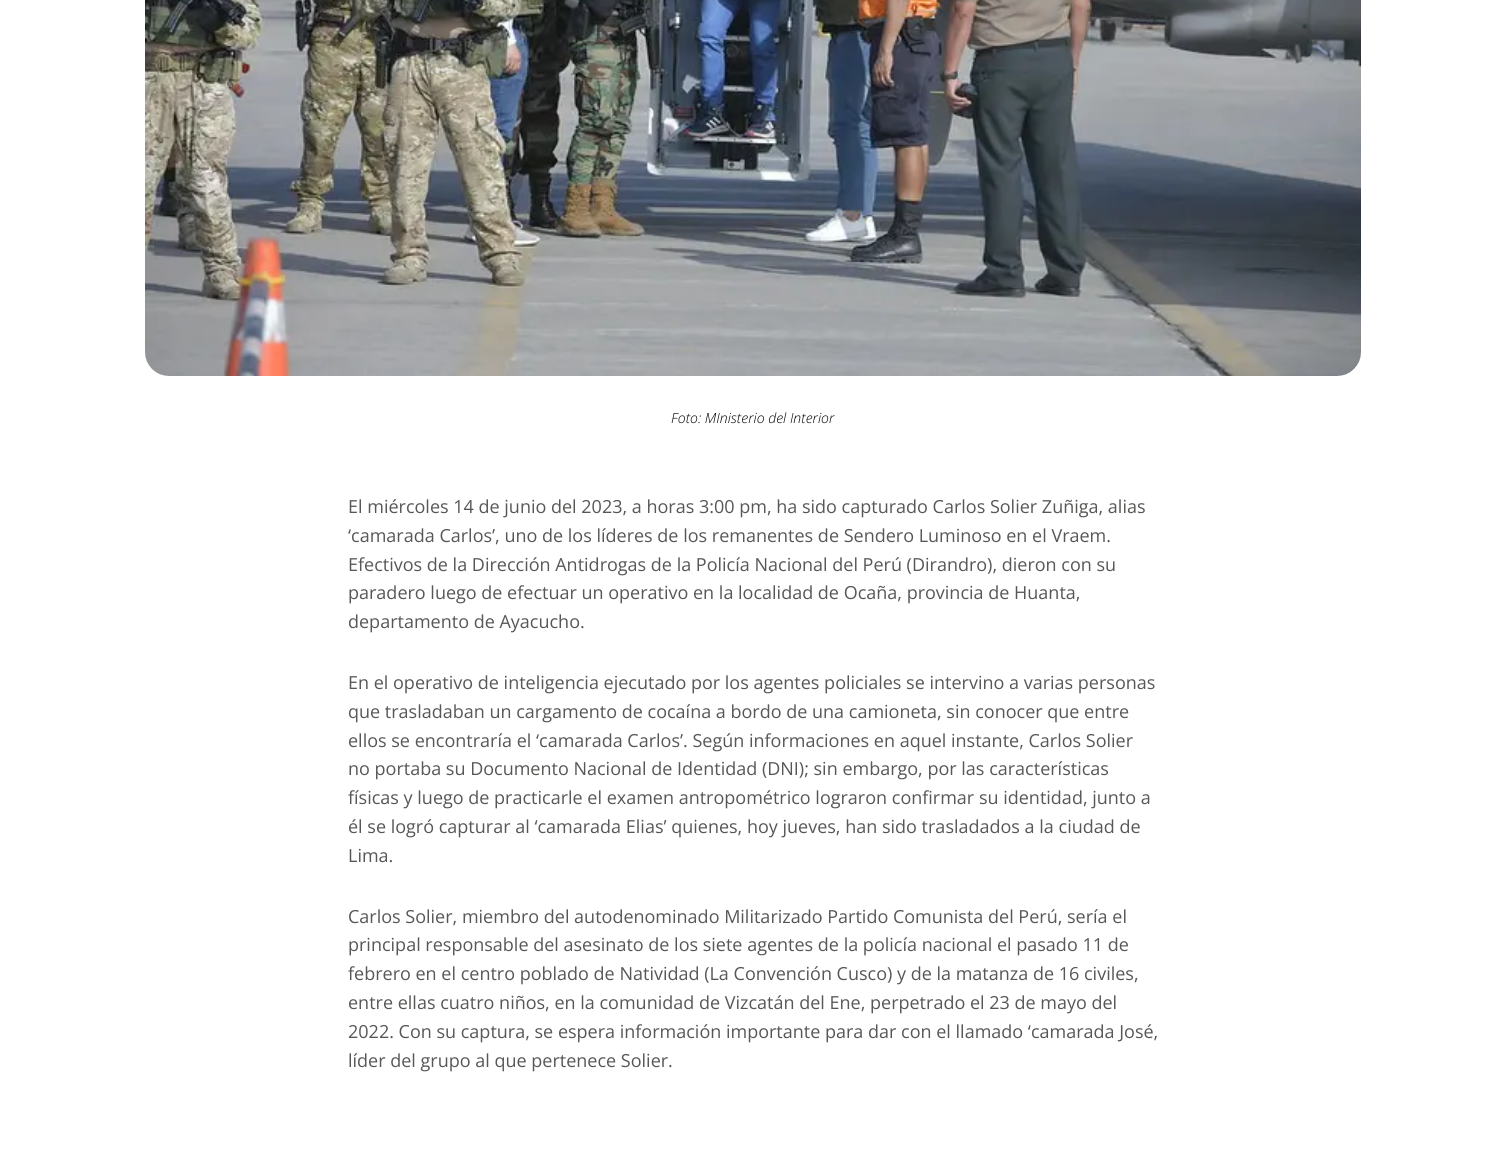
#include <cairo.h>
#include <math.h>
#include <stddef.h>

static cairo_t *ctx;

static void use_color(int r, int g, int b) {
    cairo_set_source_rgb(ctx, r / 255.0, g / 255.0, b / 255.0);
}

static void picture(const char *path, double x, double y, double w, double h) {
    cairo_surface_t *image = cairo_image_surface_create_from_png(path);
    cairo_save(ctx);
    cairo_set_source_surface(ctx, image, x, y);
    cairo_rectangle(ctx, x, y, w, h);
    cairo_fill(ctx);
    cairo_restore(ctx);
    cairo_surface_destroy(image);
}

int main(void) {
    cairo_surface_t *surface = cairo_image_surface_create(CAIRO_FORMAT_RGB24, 1506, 1161);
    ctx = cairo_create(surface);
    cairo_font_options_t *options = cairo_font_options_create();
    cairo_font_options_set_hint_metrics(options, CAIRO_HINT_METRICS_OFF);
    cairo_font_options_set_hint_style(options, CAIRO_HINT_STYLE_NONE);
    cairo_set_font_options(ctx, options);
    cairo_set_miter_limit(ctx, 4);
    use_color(255, 255, 255);
    cairo_paint(ctx);
    picture("img1.png", 145, 0, 1216, 376);
    cairo_select_font_face(ctx, "Open Sans Light", CAIRO_FONT_SLANT_ITALIC, CAIRO_FONT_WEIGHT_NORMAL);
    cairo_set_font_size(ctx, 14);
    use_color(0, 0, 0);
    cairo_move_to(ctx, 671, 423);
    cairo_show_text(ctx, "Foto: MInisterio del Interior");
    cairo_select_font_face(ctx, "Open Sans", CAIRO_FONT_SLANT_NORMAL, CAIRO_FONT_WEIGHT_NORMAL);
    cairo_set_font_size(ctx, 18);
    use_color(87, 87, 86);
    cairo_move_to(ctx, 348, 513);
    cairo_show_text(ctx, "El miércoles 14 de junio del 2023, a horas 3:00 pm, ha sido capturado Carlos Solier Zuñiga, alias");
    cairo_move_to(ctx, 348, 542);
    cairo_show_text(ctx, "‘camarada Carlos’, uno de los líderes de los remanentes de Sendero Luminoso en el Vraem.");
    cairo_move_to(ctx, 348, 571);
    cairo_show_text(ctx, "Efectivos de la Dirección Antidrogas de la Policía Nacional del Perú (Dirandro), dieron con su");
    cairo_move_to(ctx, 348, 599);
    cairo_show_text(ctx, "paradero luego de efectuar un operativo en la localidad de Ocaña, provincia de Huanta,");
    cairo_move_to(ctx, 348, 628);
    cairo_show_text(ctx, "departamento de Ayacucho.");
    cairo_move_to(ctx, 348, 689);
    cairo_show_text(ctx, "En el operativo de inteligencia ejecutado por los agentes policiales se intervino a varias personas");
    cairo_move_to(ctx, 348, 718);
    cairo_show_text(ctx, "que trasladaban un cargamento de cocaína a bordo de una camioneta, sin conocer que entre");
    cairo_move_to(ctx, 348, 747);
    cairo_show_text(ctx, "ellos se encontraría el ‘camarada Carlos’. Según informaciones en aquel instante, Carlos Solier");
    cairo_move_to(ctx, 348, 775);
    cairo_show_text(ctx, "no portaba su Documento Nacional de Identidad (DNI); sin embargo, por las características");
    cairo_move_to(ctx, 348, 804);
    cairo_show_text(ctx, "físicas y luego de practicarle el examen antropométrico lograron confirmar su identidad, junto a");
    cairo_move_to(ctx, 348, 833);
    cairo_show_text(ctx, "él se logró capturar al ‘camarada Elias’ quienes, hoy jueves, han sido trasladados a la ciudad de");
    cairo_move_to(ctx, 348, 862);
    cairo_show_text(ctx, "Lima.");
    cairo_move_to(ctx, 348, 923);
    cairo_show_text(ctx, "Carlos Solier, miembro del autodenominado Militarizado Partido Comunista del Perú, sería el");
    cairo_move_to(ctx, 348, 951);
    cairo_show_text(ctx, "principal responsable del asesinato de los siete agentes de la policía nacional el pasado 11 de");
    cairo_move_to(ctx, 348, 980);
    cairo_show_text(ctx, "febrero en el centro poblado de Natividad (La Convención Cusco) y de la matanza de 16 civiles,");
    cairo_move_to(ctx, 348, 1009);
    cairo_show_text(ctx, "entre ellas cuatro niños, en la comunidad de Vizcatán del Ene, perpetrado el 23 de mayo del");
    cairo_move_to(ctx, 348, 1038);
    cairo_show_text(ctx, "2022. Con su captura, se espera información importante para dar con el llamado ‘camarada José,");
    cairo_move_to(ctx, 348, 1067);
    cairo_show_text(ctx, "líder del grupo al que pertenece Solier.");
    cairo_surface_write_to_png(surface, "result.png");
    cairo_font_options_destroy(options);
    cairo_destroy(ctx);
    cairo_surface_destroy(surface);
    return 0;
}
